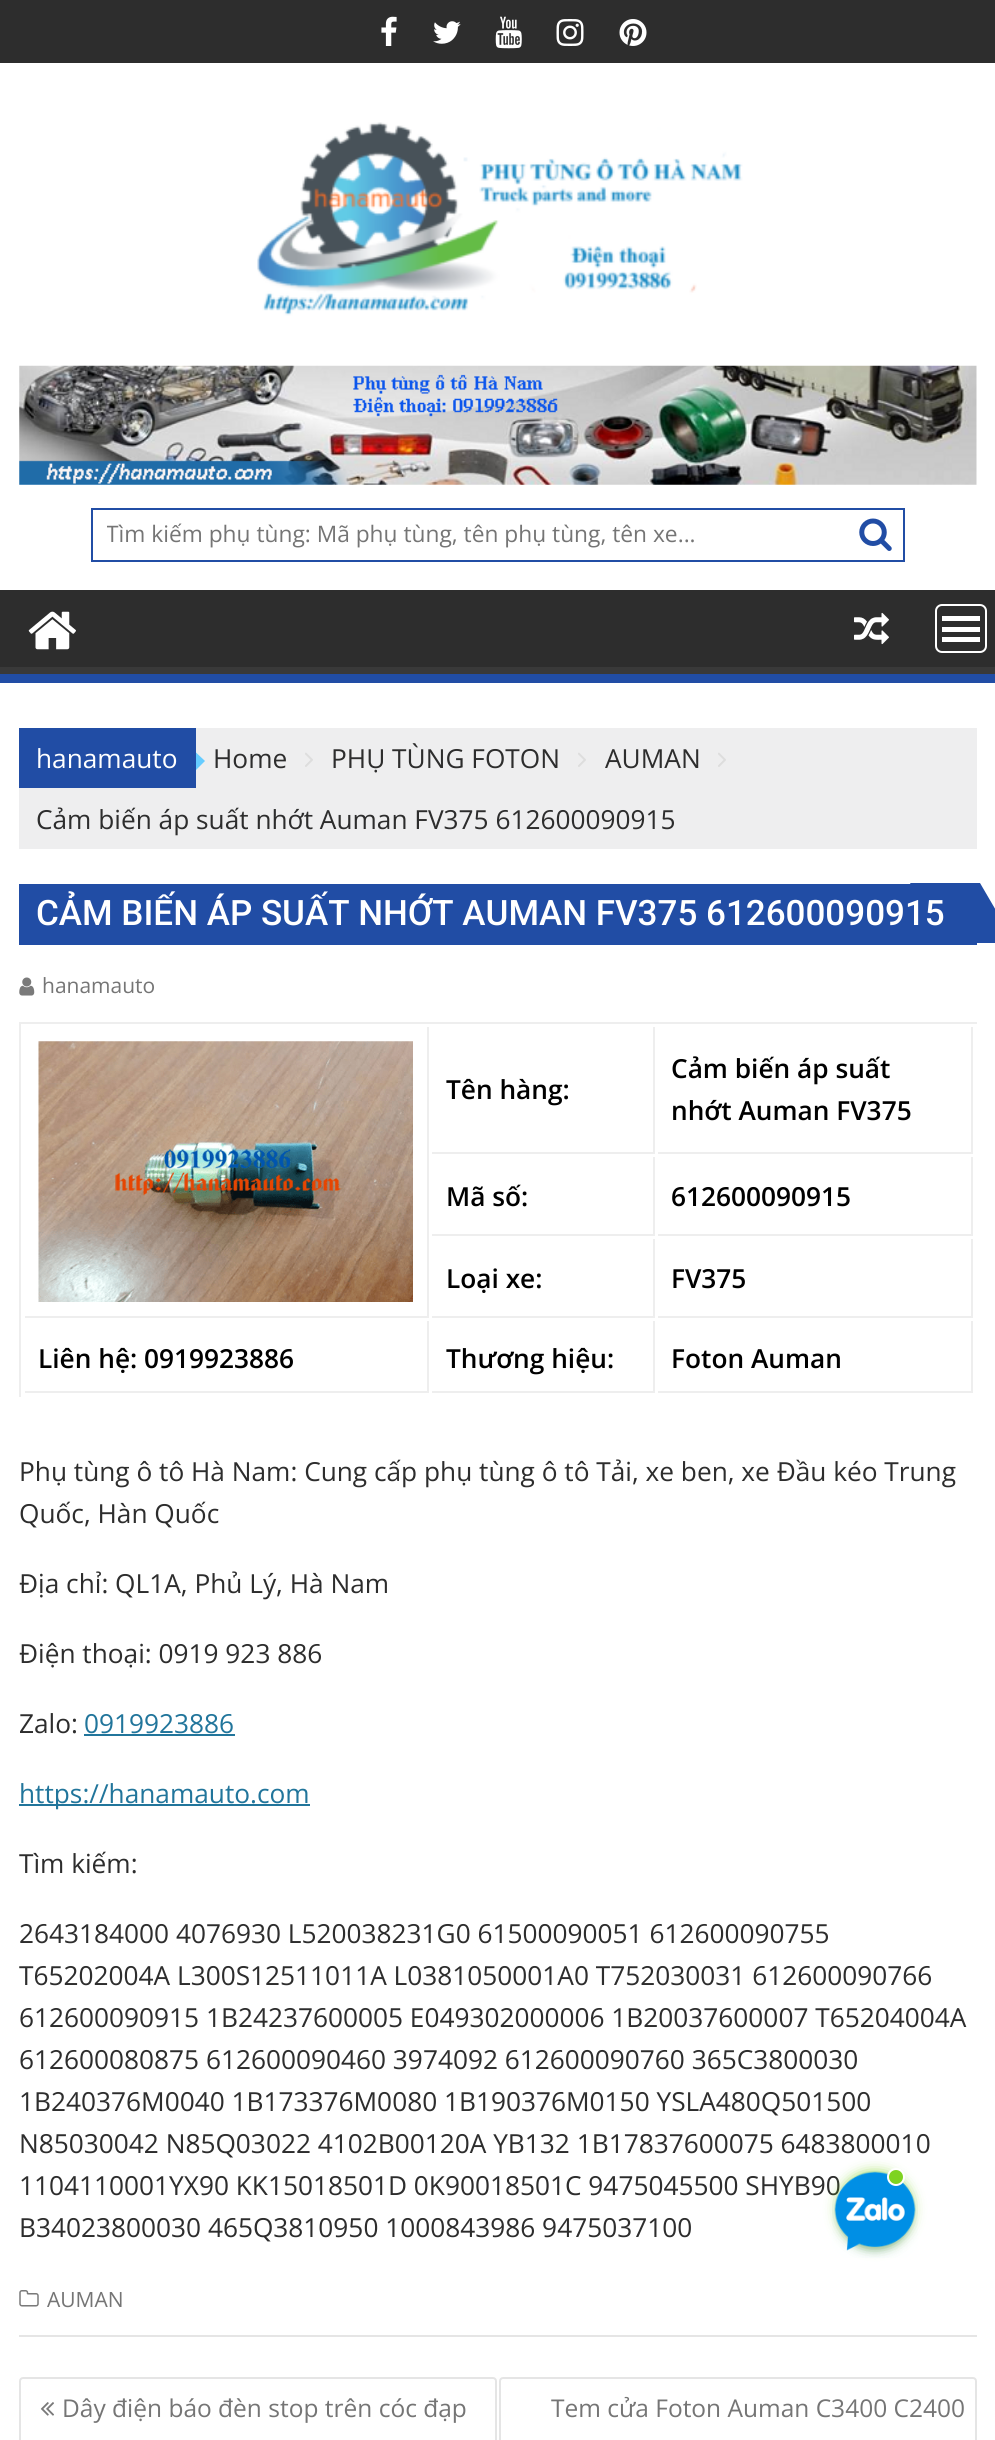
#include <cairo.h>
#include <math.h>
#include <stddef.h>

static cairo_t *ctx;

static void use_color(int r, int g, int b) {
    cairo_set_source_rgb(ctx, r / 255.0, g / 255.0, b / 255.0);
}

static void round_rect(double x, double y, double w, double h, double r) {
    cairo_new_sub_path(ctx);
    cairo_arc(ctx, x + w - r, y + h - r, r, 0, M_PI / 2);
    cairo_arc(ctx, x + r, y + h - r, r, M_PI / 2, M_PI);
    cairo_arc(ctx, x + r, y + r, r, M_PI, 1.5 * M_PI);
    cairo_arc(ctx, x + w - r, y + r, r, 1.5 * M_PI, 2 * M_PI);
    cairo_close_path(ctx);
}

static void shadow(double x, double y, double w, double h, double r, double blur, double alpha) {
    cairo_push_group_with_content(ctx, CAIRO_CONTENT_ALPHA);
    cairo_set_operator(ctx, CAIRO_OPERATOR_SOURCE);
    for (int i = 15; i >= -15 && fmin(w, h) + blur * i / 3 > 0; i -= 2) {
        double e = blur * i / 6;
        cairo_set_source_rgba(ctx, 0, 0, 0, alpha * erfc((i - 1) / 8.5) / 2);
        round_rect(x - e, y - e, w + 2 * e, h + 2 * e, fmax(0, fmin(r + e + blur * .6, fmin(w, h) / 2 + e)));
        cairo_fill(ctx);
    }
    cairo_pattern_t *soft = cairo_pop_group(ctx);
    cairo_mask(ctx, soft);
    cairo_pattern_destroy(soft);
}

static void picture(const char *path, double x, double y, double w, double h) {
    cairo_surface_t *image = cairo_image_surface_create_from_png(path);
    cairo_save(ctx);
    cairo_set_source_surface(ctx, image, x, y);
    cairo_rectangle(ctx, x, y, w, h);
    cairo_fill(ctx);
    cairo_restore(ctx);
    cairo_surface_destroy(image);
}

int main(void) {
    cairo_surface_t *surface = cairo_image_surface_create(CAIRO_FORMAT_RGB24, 995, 2440);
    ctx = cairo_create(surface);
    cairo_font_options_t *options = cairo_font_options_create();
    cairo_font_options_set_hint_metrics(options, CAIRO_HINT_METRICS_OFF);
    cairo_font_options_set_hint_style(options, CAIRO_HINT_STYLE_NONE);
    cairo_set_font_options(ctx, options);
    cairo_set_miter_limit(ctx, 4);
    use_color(255, 255, 255);
    cairo_paint(ctx);
    use_color(45, 45, 45);
    cairo_rectangle(ctx, 0, 0, 995, 63);
    cairo_fill(ctx);
    picture("img1.png", 381, 16, 16, 30);
    picture("img2.png", 433, 21, 28, 23);
    picture("img3.png", 495, 16, 27, 33);
    picture("img4.png", 556, 19, 28, 27);
    picture("img5.png", 619, 19, 28, 27);
    picture("img6.png", 257, 122, 486, 194);
    picture("img7.png", 19, 365, 958, 120);
    cairo_rectangle(ctx, 92, 509, 812, 52);
    use_color(33, 77, 165);
    cairo_stroke(ctx);
    cairo_save(ctx);
    cairo_rectangle(ctx, 107, 518, 756, 32);
    cairo_clip(ctx);
    cairo_select_font_face(ctx, "Open Sans", CAIRO_FONT_SLANT_NORMAL, CAIRO_FONT_WEIGHT_NORMAL);
    cairo_set_font_size(ctx, 22.75);
    use_color(117, 117, 117);
    cairo_move_to(ctx, 106, 542);
    cairo_show_text(ctx, "Tìm kiếm phụ tùng: Mã phụ tùng, tên phụ tùng, tên xe...");
    cairo_restore(ctx);
    picture("img8.png", 859, 518, 33, 33);
    use_color(45, 45, 45);
    cairo_rectangle(ctx, 0, 590, 995, 77);
    cairo_fill(ctx);
    cairo_save(ctx);
    cairo_rectangle(ctx, 0, 590, 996, 84);
    cairo_clip(ctx);
    use_color(57, 57, 57);
    cairo_set_fill_rule(ctx, CAIRO_FILL_RULE_EVEN_ODD);
    cairo_new_path(ctx);
    cairo_move_to(ctx, -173, 416);
    cairo_line_to(ctx, 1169, 416);
    cairo_line_to(ctx, 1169, 847);
    cairo_line_to(ctx, -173, 847);
    cairo_close_path(ctx);
    cairo_move_to(ctx, -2, 579);
    cairo_line_to(ctx, 994, 579);
    cairo_curve_to(ctx, 995, 579, 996, 580, 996, 581);
    cairo_line_to(ctx, 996, 665);
    cairo_curve_to(ctx, 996, 666, 995, 667, 994, 667);
    cairo_line_to(ctx, -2, 667);
    cairo_curve_to(ctx, -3, 667, -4, 666, -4, 665);
    cairo_line_to(ctx, -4, 581);
    cairo_curve_to(ctx, -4, 580, -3, 579, -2, 579);
    cairo_close_path(ctx);
    cairo_fill(ctx);
    cairo_restore(ctx);
    use_color(33, 77, 165);
    cairo_rectangle(ctx, 0, 674, 995, 9);
    cairo_fill(ctx);
    picture("img9.png", 28, 611, 48, 39);
    picture("img10.png", 854, 612, 35, 33);
    round_rect(936, 605, 50, 47, 6);
    use_color(255, 255, 255);
    cairo_stroke(ctx);
    cairo_rectangle(ctx, 942, 637, 38, 5);
    cairo_fill(ctx);
    cairo_rectangle(ctx, 942, 627, 38, 5);
    cairo_fill(ctx);
    cairo_rectangle(ctx, 942, 616, 38, 5);
    cairo_fill(ctx);
    use_color(238, 238, 239);
    cairo_rectangle(ctx, 19, 728, 958, 121);
    cairo_fill(ctx);
    cairo_select_font_face(ctx, "Open Sans", CAIRO_FONT_SLANT_NORMAL, CAIRO_FONT_WEIGHT_NORMAL);
    cairo_set_font_size(ctx, 26.25);
    use_color(45, 45, 45);
    cairo_move_to(ctx, 213, 768);
    cairo_show_text(ctx, "Home");
    picture("img11.png", 305, 752, 8, 15);
    cairo_move_to(ctx, 331, 768);
    cairo_show_text(ctx, "PHỤ TÙNG FOTON");
    picture("img11.png", 578, 752, 8, 15);
    cairo_move_to(ctx, 605, 768);
    cairo_show_text(ctx, "AUMAN");
    picture("img11.png", 718, 752, 8, 15);
    cairo_move_to(ctx, 36, 829);
    cairo_show_text(ctx, "Cảm biến áp suất nhớt Auman FV375 612600090915");
    use_color(33, 77, 165);
    cairo_rectangle(ctx, 19, 728, 177, 60);
    cairo_fill(ctx);
    use_color(255, 255, 255);
    cairo_move_to(ctx, 36, 768);
    cairo_show_text(ctx, "hanamauto");
    use_color(102, 204, 255);
    cairo_new_path(ctx);
    cairo_move_to(ctx, 196, 770);
    cairo_line_to(ctx, 196, 752.5);
    cairo_line_to(ctx, 205, 761);
    cairo_close_path(ctx);
    cairo_fill(ctx);
    use_color(229, 229, 229);
    cairo_rectangle(ctx, 19, 2335, 958, 2);
    cairo_fill(ctx);
    use_color(33, 77, 165);
    cairo_rectangle(ctx, 19, 943, 958, 2);
    cairo_fill(ctx);
    cairo_rectangle(ctx, 19, 884, 926, 59);
    cairo_fill(ctx);
    cairo_new_path(ctx);
    cairo_move_to(ctx, 910, 883);
    cairo_line_to(ctx, 980, 883);
    cairo_line_to(ctx, 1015, 943);
    cairo_line_to(ctx, 945, 943);
    cairo_close_path(ctx);
    cairo_fill(ctx);
    cairo_select_font_face(ctx, "Roboto Medium", CAIRO_FONT_SLANT_NORMAL, CAIRO_FONT_WEIGHT_NORMAL);
    cairo_set_font_size(ctx, 35);
    use_color(255, 255, 255);
    cairo_move_to(ctx, 36, 925);
    cairo_show_text(ctx, "CẢM BIẾN ÁP SUẤT NHỚT AUMAN FV375 612600090915");
    picture("img12.png", 19, 977, 16, 19);
    cairo_select_font_face(ctx, "Open Sans", CAIRO_FONT_SLANT_NORMAL, CAIRO_FONT_WEIGHT_NORMAL);
    cairo_set_font_size(ctx, 21);
    use_color(117, 117, 117);
    cairo_move_to(ctx, 42, 993);
    cairo_show_text(ctx, "hanamauto");
    use_color(238, 238, 238);
    cairo_rectangle(ctx, 19, 1022, 958, 2);
    cairo_fill(ctx);
    cairo_rectangle(ctx, 19, 1022, 2, 375);
    cairo_fill(ctx);
    cairo_rectangle(ctx, 427, 1027, 2, 291);
    cairo_fill(ctx);
    cairo_rectangle(ctx, 25, 1316, 404, 2);
    cairo_fill(ctx);
    picture("img13.png", 38, 1041, 375, 261);
    cairo_rectangle(ctx, 653, 1027, 2, 126);
    cairo_fill(ctx);
    cairo_rectangle(ctx, 432, 1152, 223, 2);
    cairo_fill(ctx);
    cairo_select_font_face(ctx, "Open Sans SemiBold", CAIRO_FONT_SLANT_NORMAL, CAIRO_FONT_WEIGHT_NORMAL);
    cairo_set_font_size(ctx, 26.25);
    use_color(0, 0, 0);
    cairo_move_to(ctx, 446, 1099);
    cairo_show_text(ctx, "Tên hàng:");
    use_color(238, 238, 238);
    cairo_rectangle(ctx, 971, 1027, 2, 126);
    cairo_fill(ctx);
    cairo_rectangle(ctx, 658, 1152, 315, 2);
    cairo_fill(ctx);
    use_color(0, 0, 0);
    cairo_move_to(ctx, 671, 1078);
    cairo_show_text(ctx, "Cảm biến áp suất");
    cairo_move_to(ctx, 671, 1120);
    cairo_show_text(ctx, "nhớt Auman FV375");
    use_color(238, 238, 238);
    cairo_rectangle(ctx, 653, 1157, 2, 79);
    cairo_fill(ctx);
    cairo_rectangle(ctx, 432, 1234, 223, 2);
    cairo_fill(ctx);
    use_color(0, 0, 0);
    cairo_move_to(ctx, 446, 1206);
    cairo_show_text(ctx, "Mã số:");
    use_color(238, 238, 238);
    cairo_rectangle(ctx, 971, 1157, 2, 79);
    cairo_fill(ctx);
    cairo_rectangle(ctx, 658, 1234, 315, 2);
    cairo_fill(ctx);
    use_color(0, 0, 0);
    cairo_move_to(ctx, 671, 1206);
    cairo_show_text(ctx, "612600090915");
    use_color(238, 238, 238);
    cairo_rectangle(ctx, 653, 1239, 2, 79);
    cairo_fill(ctx);
    cairo_rectangle(ctx, 432, 1316, 223, 2);
    cairo_fill(ctx);
    use_color(0, 0, 0);
    cairo_move_to(ctx, 446, 1288);
    cairo_show_text(ctx, "Loại xe:");
    use_color(238, 238, 238);
    cairo_rectangle(ctx, 971, 1239, 2, 79);
    cairo_fill(ctx);
    cairo_rectangle(ctx, 658, 1316, 315, 2);
    cairo_fill(ctx);
    use_color(0, 0, 0);
    cairo_move_to(ctx, 671, 1288);
    cairo_show_text(ctx, "FV375");
    use_color(238, 238, 238);
    cairo_rectangle(ctx, 427, 1321, 2, 72);
    cairo_fill(ctx);
    cairo_rectangle(ctx, 25, 1391, 404, 2);
    cairo_fill(ctx);
    use_color(0, 0, 0);
    cairo_move_to(ctx, 38, 1368);
    cairo_show_text(ctx, "Liên hệ: 0919923886");
    use_color(238, 238, 238);
    cairo_rectangle(ctx, 653, 1321, 2, 72);
    cairo_fill(ctx);
    cairo_rectangle(ctx, 432, 1391, 223, 2);
    cairo_fill(ctx);
    use_color(0, 0, 0);
    cairo_move_to(ctx, 446, 1368);
    cairo_show_text(ctx, "Thương hiệu:");
    use_color(238, 238, 238);
    cairo_rectangle(ctx, 971, 1321, 2, 72);
    cairo_fill(ctx);
    cairo_rectangle(ctx, 658, 1391, 315, 2);
    cairo_fill(ctx);
    use_color(0, 0, 0);
    cairo_move_to(ctx, 671, 1368);
    cairo_show_text(ctx, "Foton Auman");
    cairo_select_font_face(ctx, "Open Sans", CAIRO_FONT_SLANT_NORMAL, CAIRO_FONT_WEIGHT_NORMAL);
    use_color(45, 45, 45);
    cairo_move_to(ctx, 19, 1481);
    cairo_show_text(ctx, "Phụ tùng ô tô Hà Nam: Cung cấp phụ tùng ô tô Tải, xe ben, xe Đầu kéo Trung");
    cairo_move_to(ctx, 19, 1523);
    cairo_show_text(ctx, "Quốc, Hàn Quốc");
    cairo_move_to(ctx, 19, 1593);
    cairo_show_text(ctx, "Địa chỉ: QL1A, Phủ Lý, Hà Nam");
    cairo_move_to(ctx, 19, 1663);
    cairo_show_text(ctx, "Điện thoại: 0919 923 886");
    cairo_move_to(ctx, 19, 1733);
    cairo_show_text(ctx, "Zalo:");
    use_color(33, 117, 155);
    cairo_move_to(ctx, 84, 1733);
    cairo_show_text(ctx, "0919923886");
    cairo_rectangle(ctx, 84, 1734, 151, 2);
    cairo_fill(ctx);
    cairo_rectangle(ctx, 19, 1804, 291, 2);
    cairo_fill(ctx);
    cairo_move_to(ctx, 19, 1803);
    cairo_show_text(ctx, "https://hanamauto.com");
    use_color(45, 45, 45);
    cairo_move_to(ctx, 19, 1873);
    cairo_show_text(ctx, "Tìm kiếm:");
    cairo_move_to(ctx, 19, 1943);
    cairo_show_text(ctx, "2643184000 4076930 L520038231G0 61500090051 612600090755");
    cairo_move_to(ctx, 19, 1985);
    cairo_show_text(ctx, "T65202004A L300S12511011A L0381050001A0 T752030031 612600090766");
    cairo_move_to(ctx, 19, 2027);
    cairo_show_text(ctx, "612600090915 1B24237600005 E049302000006 1B20037600007 T65204004A");
    cairo_move_to(ctx, 19, 2069);
    cairo_show_text(ctx, "612600080875 612600090460 3974092 612600090760 365C3800030");
    cairo_move_to(ctx, 19, 2111);
    cairo_show_text(ctx, "1B240376M0040 1B173376M0080 1B190376M0150 YSLA480Q501500");
    cairo_move_to(ctx, 19, 2153);
    cairo_show_text(ctx, "N85030042 N85Q03022 4102B00120A YB132 1B17837600075 6483800010");
    cairo_move_to(ctx, 19, 2195);
    cairo_show_text(ctx, "1104110001YX90 KK15018501D 0K90018501C 9475045500 SHYB90");
    cairo_move_to(ctx, 19, 2237);
    cairo_show_text(ctx, "B34023800030 465Q3810950 1000843986 9475037100");
    picture("img14.png", 19, 2290, 20, 17);
    cairo_set_font_size(ctx, 21);
    use_color(117, 117, 117);
    cairo_move_to(ctx, 47, 2307);
    cairo_show_text(ctx, "AUMAN");
    round_rect(20, 2378, 476, 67, 3);
    use_color(229, 229, 229);
    cairo_stroke(ctx);
    picture("img15.png", 40, 2402, 14, 14);
    cairo_set_font_size(ctx, 24.5);
    use_color(117, 117, 117);
    cairo_move_to(ctx, 62, 2417);
    cairo_show_text(ctx, "Dây điện báo đèn stop trên cóc đạp");
    round_rect(500, 2378, 476, 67, 3);
    use_color(229, 229, 229);
    cairo_stroke(ctx);
    use_color(117, 117, 117);
    cairo_move_to(ctx, 551, 2417);
    cairo_show_text(ctx, "Tem cửa Foton Auman C3400 C2400");
    use_color(126, 211, 33);
    shadow(840, 2174, 70, 70, 35, 7, 1);
    picture("img16.png", 832, 2171, 86, 87);
    use_color(126, 211, 33);
    cairo_arc(ctx, 896, 2177, 8, 0, 2 * M_PI);
    cairo_fill_preserve(ctx);
    use_color(255, 255, 255);
    cairo_stroke(ctx);
    cairo_surface_write_to_png(surface, "result.png");
    cairo_font_options_destroy(options);
    cairo_destroy(ctx);
    cairo_surface_destroy(surface);
    return 0;
}
